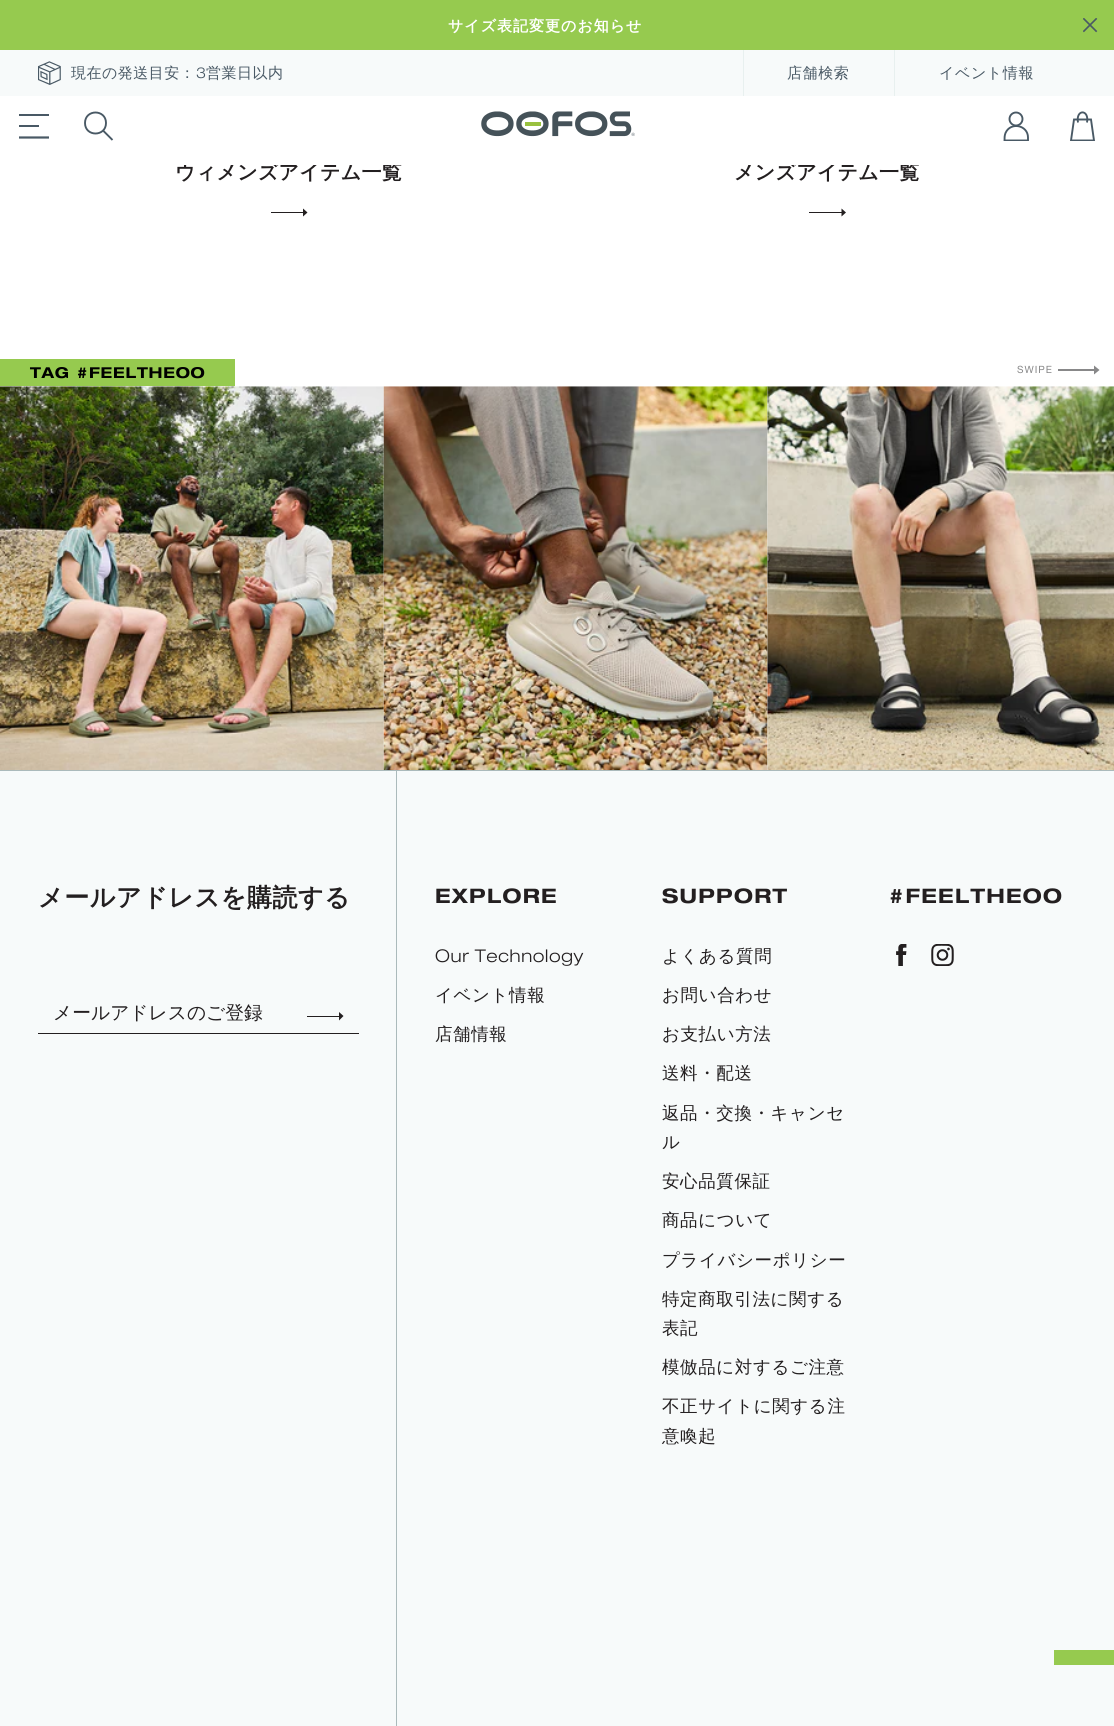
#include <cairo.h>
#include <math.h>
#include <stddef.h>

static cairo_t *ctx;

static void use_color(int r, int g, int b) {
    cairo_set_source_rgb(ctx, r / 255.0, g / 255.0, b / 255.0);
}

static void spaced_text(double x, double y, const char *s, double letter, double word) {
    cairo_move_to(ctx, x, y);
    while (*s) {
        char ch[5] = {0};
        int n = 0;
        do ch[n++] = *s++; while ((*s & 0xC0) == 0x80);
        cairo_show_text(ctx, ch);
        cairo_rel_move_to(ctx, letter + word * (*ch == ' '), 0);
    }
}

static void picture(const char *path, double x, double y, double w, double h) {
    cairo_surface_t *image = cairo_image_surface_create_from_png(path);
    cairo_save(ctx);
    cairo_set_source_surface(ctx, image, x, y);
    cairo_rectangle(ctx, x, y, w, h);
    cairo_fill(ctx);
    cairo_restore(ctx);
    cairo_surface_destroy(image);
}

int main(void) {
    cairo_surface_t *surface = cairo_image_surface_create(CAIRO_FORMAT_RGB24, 1114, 1726);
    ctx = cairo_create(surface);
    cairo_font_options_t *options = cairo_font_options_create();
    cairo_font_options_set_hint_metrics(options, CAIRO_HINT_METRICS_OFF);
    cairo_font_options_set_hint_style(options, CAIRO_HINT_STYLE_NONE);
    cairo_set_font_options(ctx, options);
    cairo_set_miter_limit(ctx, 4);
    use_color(255, 255, 255);
    cairo_paint(ctx);
    use_color(150, 202, 79);
    cairo_rectangle(ctx, 0, 0, 1114, 50);
    cairo_fill(ctx);
    cairo_select_font_face(ctx, "WenQuanYi Zen Hei", CAIRO_FONT_SLANT_NORMAL, CAIRO_FONT_WEIGHT_BOLD);
    cairo_set_font_size(ctx, 15);
    use_color(255, 255, 255);
    spaced_text(448, 31, "サイズ表記変更のお知らせ", 1, 0);
    picture("img1.png", 1083, 18, 15, 15);
    use_color(247, 250, 250);
    cairo_rectangle(ctx, 0, 50, 1114, 46);
    cairo_fill(ctx);
    picture("img2.png", 38, 61, 23, 24);
    cairo_select_font_face(ctx, "WenQuanYi Zen Hei Medium", CAIRO_FONT_SLANT_NORMAL, CAIRO_FONT_WEIGHT_NORMAL);
    use_color(73, 89, 101);
    spaced_text(71, 78, "現在の発送目安：", 0.5, 0);
    cairo_select_font_face(ctx, "Helvetica Neue Light", CAIRO_FONT_SLANT_NORMAL, CAIRO_FONT_WEIGHT_NORMAL);
    spaced_text(196, 78, "3", 0.5, 0);
    cairo_select_font_face(ctx, "WenQuanYi Zen Hei Medium", CAIRO_FONT_SLANT_NORMAL, CAIRO_FONT_WEIGHT_NORMAL);
    spaced_text(206, 78, "営業日以内", 0.5, 0);
    use_color(232, 240, 239);
    cairo_rectangle(ctx, 743, 50, 1, 46);
    cairo_fill(ctx);
    use_color(73, 89, 101);
    spaced_text(787, 78, "店舗検索", 0.6, 0);
    use_color(232, 240, 239);
    cairo_rectangle(ctx, 894, 50, 1, 46);
    cairo_fill(ctx);
    use_color(73, 89, 101);
    spaced_text(939, 78, "イベント情報", 0.6, 0);
    cairo_select_font_face(ctx, "WenQuanYi Zen Hei", CAIRO_FONT_SLANT_NORMAL, CAIRO_FONT_WEIGHT_BOLD);
    cairo_set_font_size(ctx, 20);
    use_color(35, 31, 32);
    spaced_text(175, 179, "ウィメンズアイテム一覧", 0.25, 0);
    spaced_text(734, 179, "メンズアイテム一覧", 0.25, 0);
    use_color(255, 255, 255);
    cairo_rectangle(ctx, 183, 162, 736, 3);
    cairo_fill(ctx);
    use_color(73, 89, 101);
    cairo_rectangle(ctx, 19, 114, 30, 2);
    cairo_fill(ctx);
    cairo_rectangle(ctx, 19, 125, 20, 2);
    cairo_fill(ctx);
    cairo_new_path(ctx);
    cairo_move_to(ctx, 19, 137.5);
    cairo_line_to(ctx, 49, 137.5);
    cairo_set_line_width(ctx, 2.2);
    cairo_stroke(ctx);
    cairo_new_path(ctx);
    cairo_move_to(ctx, 106, 123);
    cairo_curve_to(ctx, 106, 137, 85, 137, 85, 123);
    cairo_curve_to(ctx, 85, 109, 106, 109, 106, 123);
    cairo_close_path(ctx);
    cairo_move_to(ctx, 102.5, 130);
    cairo_line_to(ctx, 112.5, 140);
    cairo_set_line_width(ctx, 1.9);
    cairo_stroke(ctx);
    picture("img3.png", 481, 111, 154, 26);
    cairo_arc(ctx, 1016, 119, 6.5, 0, 2 * M_PI);
    cairo_stroke(ctx);
    cairo_save(ctx);
    cairo_rectangle(ctx, 1001, 111, 30, 30);
    cairo_clip(ctx);
    cairo_new_path(ctx);
    cairo_move_to(ctx, 1028, 137.5);
    cairo_line_to(ctx, 1028, 140.5);
    cairo_line_to(ctx, 1004.5, 140.5);
    cairo_curve_to(ctx, 1004.5, 138, 1004.5, 135.5, 1005.5, 133);
    cairo_curve_to(ctx, 1010.5, 121.5, 1028, 125, 1028, 137.5);
    cairo_close_path(ctx);
    cairo_stroke(ctx);
    cairo_restore(ctx);
    cairo_save(ctx);
    cairo_rectangle(ctx, 1066, 111, 30, 30);
    cairo_clip(ctx);
    cairo_new_path(ctx);
    cairo_move_to(ctx, 1071, 140.5);
    cairo_line_to(ctx, 1074, 119.5);
    cairo_line_to(ctx, 1091, 119.5);
    cairo_line_to(ctx, 1094, 140.5);
    cairo_close_path(ctx);
    cairo_stroke(ctx);
    cairo_restore(ctx);
    cairo_new_path(ctx);
    cairo_move_to(ctx, 1078, 122.5);
    cairo_curve_to(ctx, 1075.5, 109, 1089.5, 109, 1087, 122.5);
    cairo_stroke(ctx);
    use_color(35, 31, 32);
    cairo_rectangle(ctx, 271, 212, 33, 1);
    cairo_fill(ctx);
    cairo_set_fill_rule(ctx, CAIRO_FILL_RULE_EVEN_ODD);
    cairo_new_path(ctx);
    cairo_move_to(ctx, 303, 216.5);
    cairo_line_to(ctx, 307.5, 212.5);
    cairo_line_to(ctx, 303, 208.5);
    cairo_close_path(ctx);
    cairo_fill(ctx);
    cairo_rectangle(ctx, 809, 212, 33, 1);
    cairo_fill(ctx);
    cairo_new_path(ctx);
    cairo_move_to(ctx, 841.5, 216.5);
    cairo_line_to(ctx, 846, 212.5);
    cairo_line_to(ctx, 841.5, 208.5);
    cairo_close_path(ctx);
    cairo_fill(ctx);
    use_color(150, 202, 79);
    cairo_rectangle(ctx, 0, 359, 235, 27);
    cairo_fill(ctx);
    cairo_select_font_face(ctx, "Helvetica Neue", CAIRO_FONT_SLANT_NORMAL, CAIRO_FONT_WEIGHT_BOLD);
    cairo_set_font_size(ctx, 15);
    use_color(0, 0, 0);
    spaced_text(30, 378, "TAG #FEELTHEOO", 0.75, 0);
    cairo_select_font_face(ctx, "Helvetica Neue", CAIRO_FONT_SLANT_NORMAL, CAIRO_FONT_WEIGHT_NORMAL);
    cairo_set_font_size(ctx, 10);
    use_color(136, 136, 137);
    spaced_text(1017, 373, "SWIPE", 1, 0);
    cairo_rectangle(ctx, 1058, 369, 37, 2);
    cairo_fill(ctx);
    cairo_new_path(ctx);
    cairo_move_to(ctx, 1094, 374.5);
    cairo_line_to(ctx, 1099.5, 370);
    cairo_line_to(ctx, 1094, 365.5);
    cairo_close_path(ctx);
    cairo_fill(ctx);
    picture("img4.png", 0, 386, 384, 384);
    picture("img5.png", 383, 386, 385, 384);
    picture("img6.png", 767, 386, 347, 384);
    use_color(247, 250, 250);
    cairo_rectangle(ctx, 0, 771, 1114, 955);
    cairo_fill(ctx);
    use_color(171, 186, 187);
    cairo_rectangle(ctx, 0, 770, 1114, 1);
    cairo_fill(ctx);
    cairo_rectangle(ctx, 396, 771, 1, 955);
    cairo_fill(ctx);
    cairo_select_font_face(ctx, "WenQuanYi Zen Hei", CAIRO_FONT_SLANT_NORMAL, CAIRO_FONT_WEIGHT_BOLD);
    cairo_set_font_size(ctx, 25);
    use_color(35, 31, 32);
    spaced_text(38, 906, "メールアドレスを購読する", 0.6, 0);
    cairo_rectangle(ctx, 38, 1033, 321, 1);
    cairo_fill(ctx);
    cairo_select_font_face(ctx, "WenQuanYi Zen Hei Medium", CAIRO_FONT_SLANT_NORMAL, CAIRO_FONT_WEIGHT_NORMAL);
    cairo_set_font_size(ctx, 18.75);
    cairo_move_to(ctx, 53, 1019);
    cairo_show_text(ctx, "メールアドレスのご登録");
    cairo_rectangle(ctx, 307, 1016, 33, 1);
    cairo_fill(ctx);
    cairo_new_path(ctx);
    cairo_move_to(ctx, 339, 1020.5);
    cairo_line_to(ctx, 343.5, 1016);
    cairo_line_to(ctx, 339, 1012);
    cairo_close_path(ctx);
    cairo_fill(ctx);
    cairo_select_font_face(ctx, "Helvetica Neue", CAIRO_FONT_SLANT_NORMAL, CAIRO_FONT_WEIGHT_BOLD);
    cairo_set_font_size(ctx, 20);
    spaced_text(435, 903, "EXPLORE", 1.25, 0);
    cairo_select_font_face(ctx, "Helvetica Neue Light", CAIRO_FONT_SLANT_NORMAL, CAIRO_FONT_WEIGHT_NORMAL);
    cairo_set_font_size(ctx, 17.5);
    spaced_text(435, 962, "Our Technology", 0.6, 0);
    cairo_select_font_face(ctx, "WenQuanYi Zen Hei Medium", CAIRO_FONT_SLANT_NORMAL, CAIRO_FONT_WEIGHT_NORMAL);
    spaced_text(435, 1001, "イベント情報", 0.6, 0);
    spaced_text(435, 1040, "店舗情報", 0.6, 0);
    cairo_select_font_face(ctx, "Helvetica Neue", CAIRO_FONT_SLANT_NORMAL, CAIRO_FONT_WEIGHT_BOLD);
    cairo_set_font_size(ctx, 20);
    spaced_text(662, 903, "SUPPORT", 1.25, 0);
    cairo_select_font_face(ctx, "WenQuanYi Zen Hei Medium", CAIRO_FONT_SLANT_NORMAL, CAIRO_FONT_WEIGHT_NORMAL);
    cairo_set_font_size(ctx, 17.5);
    spaced_text(662, 962, "よくある質問", 0.6, 0);
    spaced_text(662, 1001, "お問い合わせ", 0.6, 0);
    spaced_text(662, 1040, "お支払い方法", 0.6, 0);
    spaced_text(662, 1079, "送料・配送", 0.6, 0);
    spaced_text(662, 1119, "返品・交換・キャンセ", 0.6, 0);
    spaced_text(662, 1148, "ル", 0.6, 0);
    spaced_text(662, 1187, "安心品質保証", 0.6, 0);
    spaced_text(662, 1226, "商品について", 0.6, 0);
    spaced_text(662, 1266, "プライバシーポリシー", 0.6, 0);
    spaced_text(662, 1305, "特定商取引法に関する", 0.6, 0);
    spaced_text(662, 1334, "表記", 0.6, 0);
    spaced_text(662, 1373, "模倣品に対するご注意", 0.6, 0);
    spaced_text(662, 1412, "不正サイトに関する注", 0.6, 0);
    spaced_text(662, 1442, "意喚起", 0.6, 0);
    cairo_select_font_face(ctx, "Helvetica Neue", CAIRO_FONT_SLANT_NORMAL, CAIRO_FONT_WEIGHT_BOLD);
    cairo_set_font_size(ctx, 20);
    spaced_text(888, 903, "#FEELTHEOO", 1.25, 0);
    picture("img7.png", 896, 944, 11, 22);
    picture("img8.png", 931, 944, 23, 22);
    use_color(150, 202, 79);
    cairo_rectangle(ctx, 1054, 1650, 60, 15);
    cairo_fill(ctx);
    cairo_surface_write_to_png(surface, "result.png");
    cairo_font_options_destroy(options);
    cairo_destroy(ctx);
    cairo_surface_destroy(surface);
    return 0;
}
